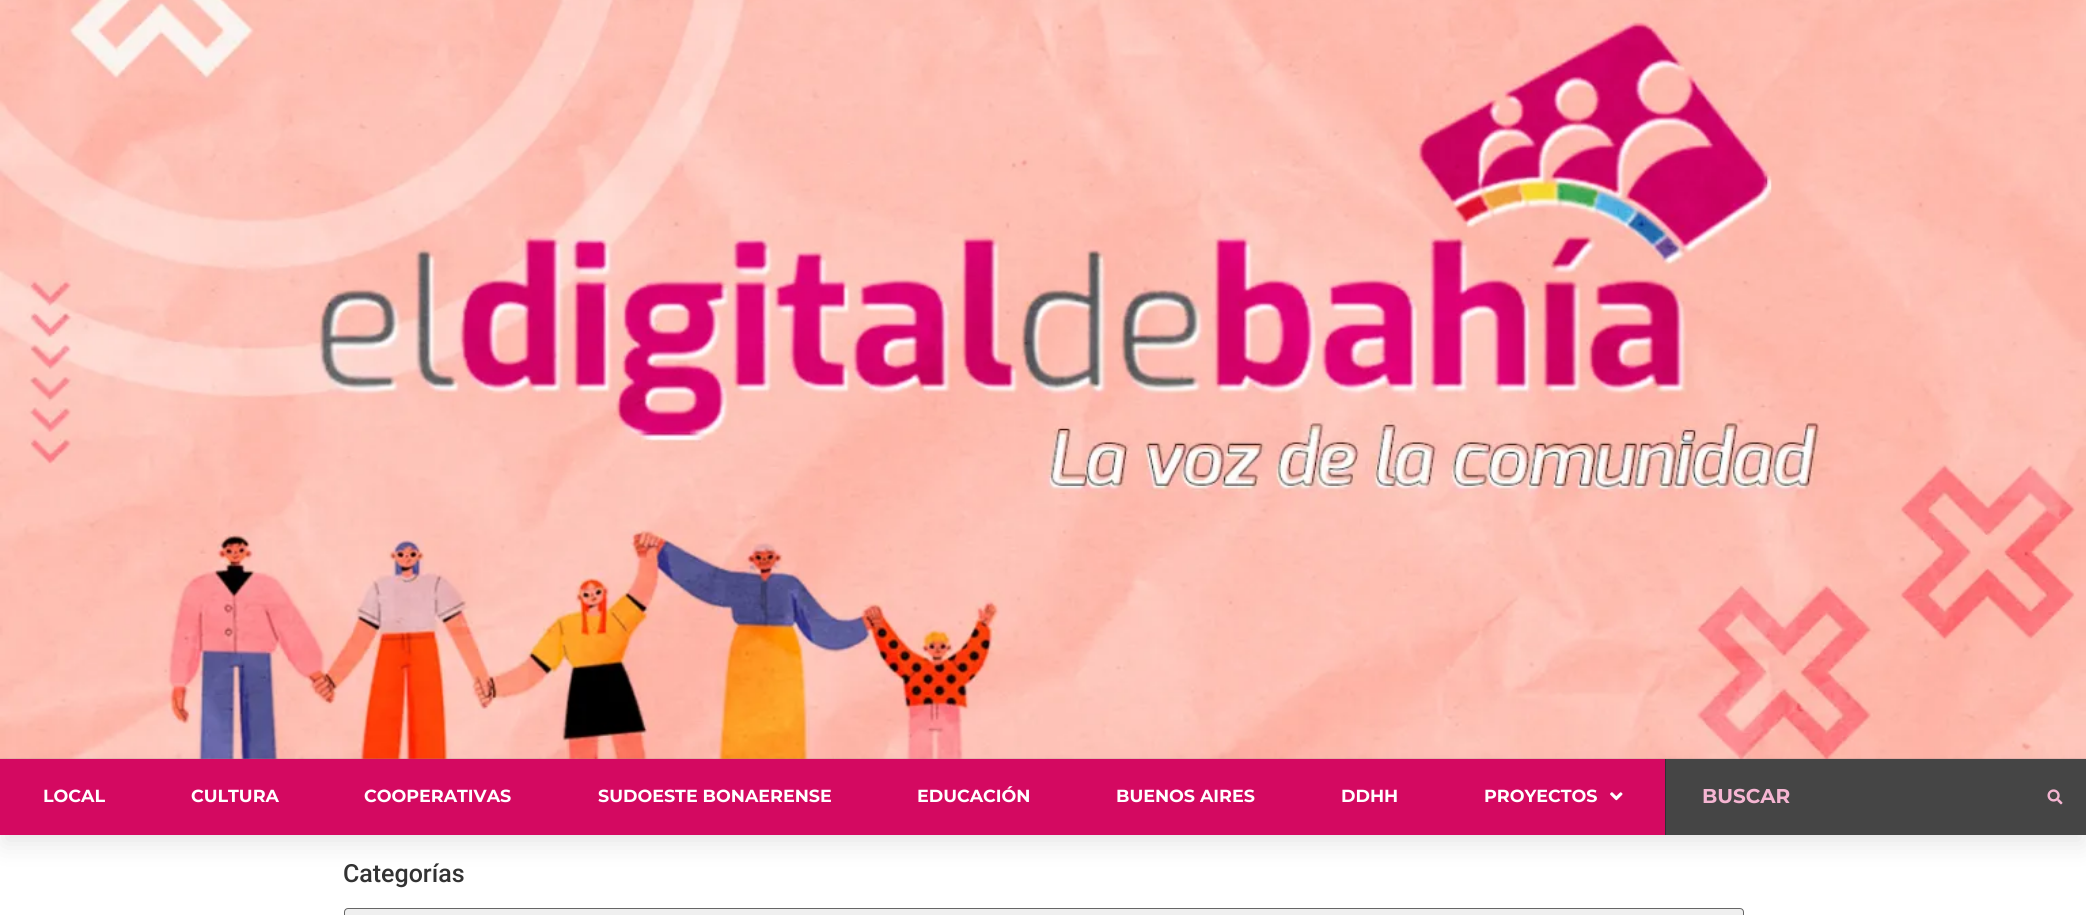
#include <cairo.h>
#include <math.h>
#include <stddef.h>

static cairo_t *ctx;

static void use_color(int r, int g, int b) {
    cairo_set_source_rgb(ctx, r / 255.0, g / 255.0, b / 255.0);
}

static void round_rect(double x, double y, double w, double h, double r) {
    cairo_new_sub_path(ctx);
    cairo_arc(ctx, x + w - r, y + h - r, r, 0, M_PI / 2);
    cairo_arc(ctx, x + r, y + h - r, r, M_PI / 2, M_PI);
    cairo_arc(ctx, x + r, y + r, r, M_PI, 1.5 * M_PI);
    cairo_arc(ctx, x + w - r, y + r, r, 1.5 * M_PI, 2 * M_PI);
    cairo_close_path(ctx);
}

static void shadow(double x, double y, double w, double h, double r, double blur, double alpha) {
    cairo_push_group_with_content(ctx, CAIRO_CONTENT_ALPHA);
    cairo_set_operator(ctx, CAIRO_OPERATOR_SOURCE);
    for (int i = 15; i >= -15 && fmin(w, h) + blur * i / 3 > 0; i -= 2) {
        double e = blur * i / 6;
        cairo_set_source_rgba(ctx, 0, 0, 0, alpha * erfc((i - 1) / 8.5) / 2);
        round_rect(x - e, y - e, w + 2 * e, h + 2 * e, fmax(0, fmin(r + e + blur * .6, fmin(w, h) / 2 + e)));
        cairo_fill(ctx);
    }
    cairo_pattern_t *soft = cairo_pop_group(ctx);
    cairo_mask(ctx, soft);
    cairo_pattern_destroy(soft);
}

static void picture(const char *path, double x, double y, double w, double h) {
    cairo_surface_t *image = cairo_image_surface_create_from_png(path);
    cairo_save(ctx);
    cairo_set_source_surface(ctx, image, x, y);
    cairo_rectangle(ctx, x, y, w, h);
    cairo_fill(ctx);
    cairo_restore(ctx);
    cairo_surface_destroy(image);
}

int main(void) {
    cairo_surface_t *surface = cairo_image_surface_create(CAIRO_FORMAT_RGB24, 2086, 915);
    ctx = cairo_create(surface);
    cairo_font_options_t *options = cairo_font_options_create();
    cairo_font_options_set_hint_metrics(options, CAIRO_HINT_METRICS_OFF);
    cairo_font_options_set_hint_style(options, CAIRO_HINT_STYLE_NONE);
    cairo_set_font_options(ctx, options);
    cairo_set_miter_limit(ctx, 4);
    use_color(255, 255, 255);
    cairo_paint(ctx);
    picture("img1.png", 0, 758, 2086, 1);
    picture("img2.png", 0, 0, 2086, 759);
    use_color(0, 0, 0);
    shadow(3, 773, 2081, 71, 0, 12.5, 0.1);
    use_color(212, 9, 97);
    cairo_rectangle(ctx, 0, 759, 1665, 76);
    cairo_fill(ctx);
    cairo_select_font_face(ctx, "Montserrat", CAIRO_FONT_SLANT_NORMAL, CAIRO_FONT_WEIGHT_BOLD);
    cairo_set_font_size(ctx, 17.5);
    use_color(255, 255, 255);
    cairo_move_to(ctx, 43, 802);
    cairo_show_text(ctx, "LOCAL");
    cairo_move_to(ctx, 191, 802);
    cairo_show_text(ctx, "CULTURA");
    cairo_move_to(ctx, 364, 802);
    cairo_show_text(ctx, "COOPERATIVAS");
    cairo_move_to(ctx, 598, 802);
    cairo_show_text(ctx, "SUDOESTE BONAERENSE");
    cairo_move_to(ctx, 917, 802);
    cairo_show_text(ctx, "EDUCACIÓN");
    cairo_move_to(ctx, 1116, 802);
    cairo_show_text(ctx, "BUENOS AIRES");
    cairo_move_to(ctx, 1341, 802);
    cairo_show_text(ctx, "DDHH");
    cairo_move_to(ctx, 1484, 802);
    cairo_show_text(ctx, "PROYECTOS");
    picture("img3.png", 1610, 792, 13, 9);
    use_color(69, 69, 69);
    cairo_rectangle(ctx, 1666, 759, 420, 76);
    cairo_fill(ctx);
    use_color(47, 48, 51);
    cairo_rectangle(ctx, 1665, 759, 1, 76);
    cairo_fill(ctx);
    cairo_set_font_size(ctx, 20);
    use_color(245, 181, 210);
    cairo_move_to(ctx, 1702, 803);
    cairo_show_text(ctx, "BUSCAR");
    picture("img4.png", 2047, 789, 16, 16);
    cairo_select_font_face(ctx, "Roboto Medium", CAIRO_FONT_SLANT_NORMAL, CAIRO_FONT_WEIGHT_NORMAL);
    cairo_set_font_size(ctx, 25);
    use_color(51, 51, 51);
    cairo_move_to(ctx, 343, 882);
    cairo_show_text(ctx, "Categorías");
    use_color(239, 239, 239);
    round_rect(344.5, 908.5, 1399, 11, 3.5);
    cairo_fill_preserve(ctx);
    use_color(102, 102, 102);
    cairo_set_line_width(ctx, 1);
    cairo_stroke(ctx);
    cairo_surface_write_to_png(surface, "result.png");
    cairo_font_options_destroy(options);
    cairo_destroy(ctx);
    cairo_surface_destroy(surface);
    return 0;
}
